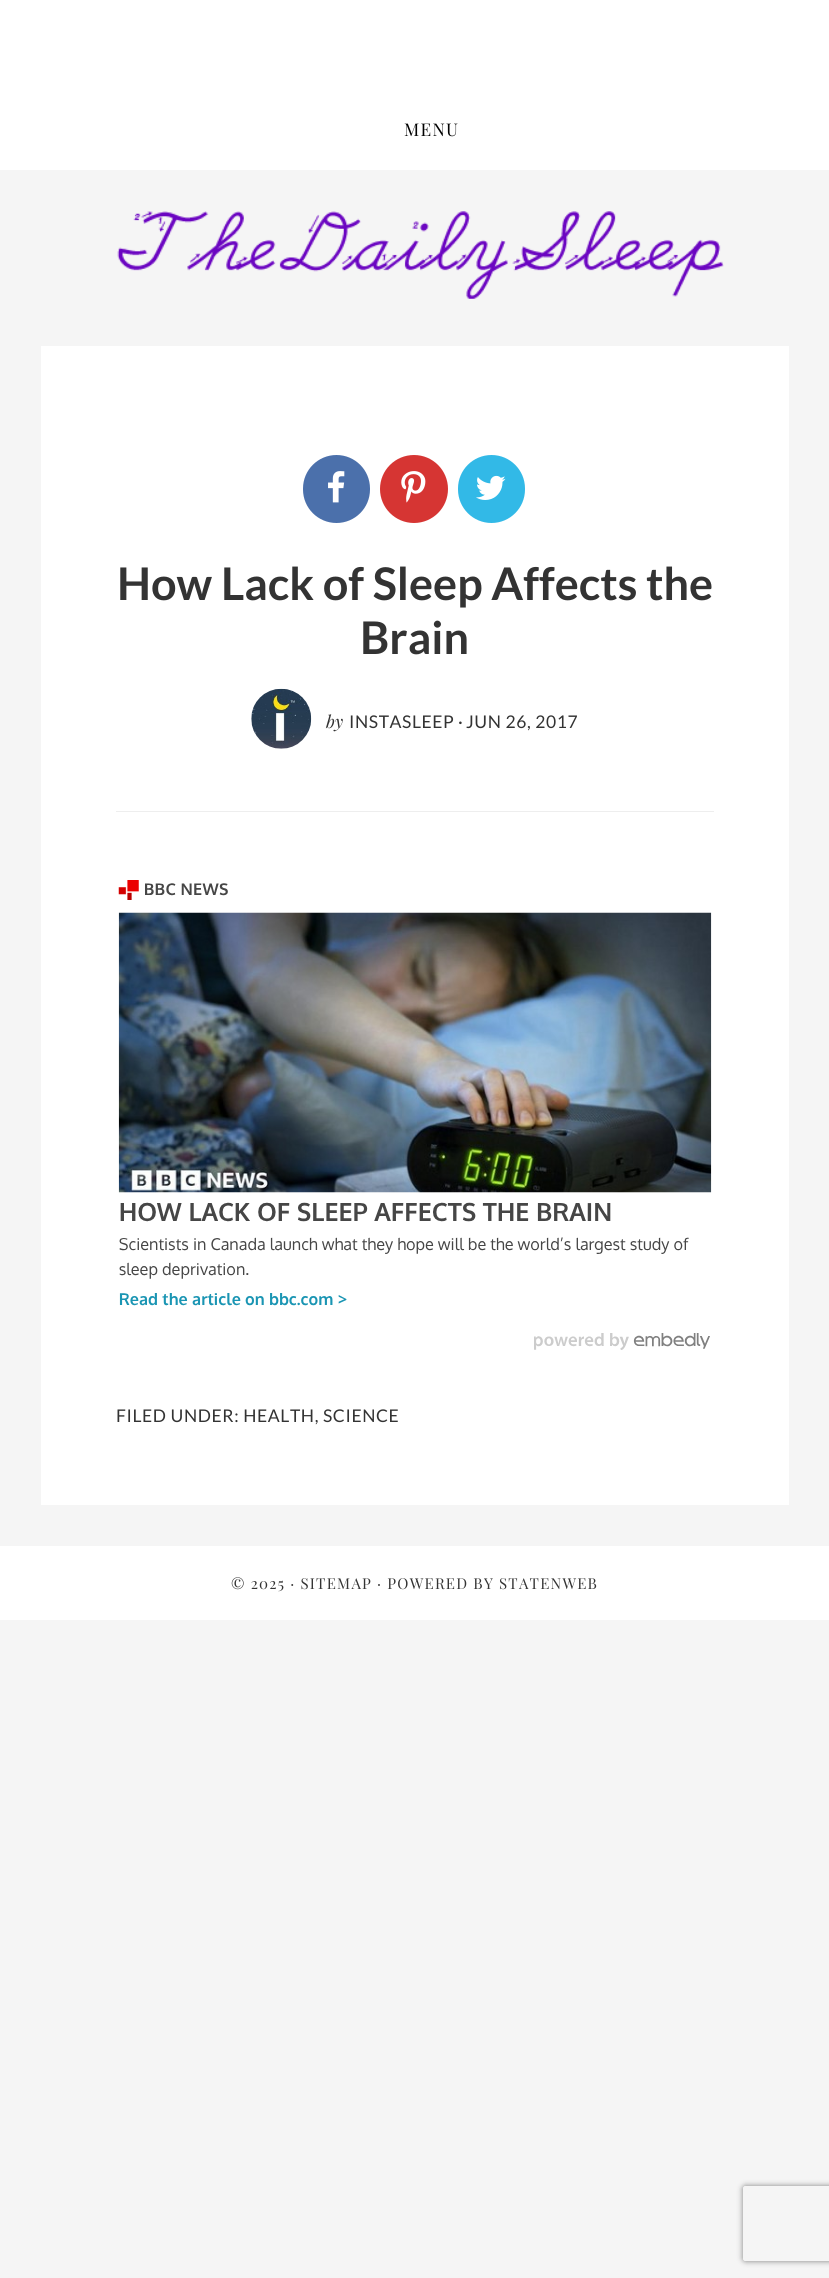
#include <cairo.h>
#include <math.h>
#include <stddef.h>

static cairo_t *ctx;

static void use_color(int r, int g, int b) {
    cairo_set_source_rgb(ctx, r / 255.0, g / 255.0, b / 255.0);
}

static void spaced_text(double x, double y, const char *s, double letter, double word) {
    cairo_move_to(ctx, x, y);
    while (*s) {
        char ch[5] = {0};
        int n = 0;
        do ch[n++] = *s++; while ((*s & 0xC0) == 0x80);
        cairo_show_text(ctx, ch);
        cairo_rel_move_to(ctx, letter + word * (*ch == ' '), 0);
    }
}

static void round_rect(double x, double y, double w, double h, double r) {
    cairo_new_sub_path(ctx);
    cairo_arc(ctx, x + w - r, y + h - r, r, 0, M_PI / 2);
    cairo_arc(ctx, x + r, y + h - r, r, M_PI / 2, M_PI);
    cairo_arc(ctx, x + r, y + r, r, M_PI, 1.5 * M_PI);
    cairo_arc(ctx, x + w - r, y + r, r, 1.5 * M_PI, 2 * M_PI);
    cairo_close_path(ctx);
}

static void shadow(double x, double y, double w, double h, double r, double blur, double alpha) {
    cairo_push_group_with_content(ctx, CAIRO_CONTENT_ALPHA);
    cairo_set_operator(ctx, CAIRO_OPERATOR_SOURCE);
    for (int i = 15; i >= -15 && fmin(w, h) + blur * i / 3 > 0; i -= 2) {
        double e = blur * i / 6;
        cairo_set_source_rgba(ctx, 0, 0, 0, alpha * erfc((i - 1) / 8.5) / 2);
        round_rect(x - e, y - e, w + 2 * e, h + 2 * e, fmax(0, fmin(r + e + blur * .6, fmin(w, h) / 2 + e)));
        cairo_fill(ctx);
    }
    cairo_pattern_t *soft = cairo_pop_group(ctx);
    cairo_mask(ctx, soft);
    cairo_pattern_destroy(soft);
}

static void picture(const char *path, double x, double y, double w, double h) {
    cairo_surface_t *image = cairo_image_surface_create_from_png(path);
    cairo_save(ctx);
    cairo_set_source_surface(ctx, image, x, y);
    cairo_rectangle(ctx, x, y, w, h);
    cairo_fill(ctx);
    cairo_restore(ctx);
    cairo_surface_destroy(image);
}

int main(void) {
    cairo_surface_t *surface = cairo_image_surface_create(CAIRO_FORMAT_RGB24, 829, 2278);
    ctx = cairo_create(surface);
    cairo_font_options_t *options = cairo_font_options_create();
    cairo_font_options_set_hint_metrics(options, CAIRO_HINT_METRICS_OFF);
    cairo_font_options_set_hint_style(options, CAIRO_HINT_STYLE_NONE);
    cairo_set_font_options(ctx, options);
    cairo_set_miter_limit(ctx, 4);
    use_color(245, 245, 245);
    cairo_paint(ctx);
    use_color(255, 255, 255);
    cairo_rectangle(ctx, 0, 0, 829, 170);
    cairo_fill(ctx);
    cairo_select_font_face(ctx, "Playfair Display", CAIRO_FONT_SLANT_NORMAL, CAIRO_FONT_WEIGHT_NORMAL);
    cairo_set_font_size(ctx, 17.5);
    use_color(0, 0, 0);
    spaced_text(404, 136, "MENU", 1.25, 0);
    picture("img1.png", 117, 211, 607, 88);
    use_color(255, 255, 255);
    cairo_rectangle(ctx, 41, 346, 748, 1159);
    cairo_fill(ctx);
    use_color(238, 238, 238);
    cairo_rectangle(ctx, 116, 811, 598, 1);
    cairo_fill(ctx);
    use_color(75, 112, 171);
    round_rect(303, 455, 67, 68, 33.5);
    cairo_fill(ctx);
    picture("img2.png", 328, 471, 17, 32);
    use_color(214, 53, 51);
    cairo_arc(ctx, 414, 489, 34, 0, 2 * M_PI);
    cairo_fill(ctx);
    picture("img3.png", 401, 471, 25, 32);
    use_color(50, 185, 231);
    round_rect(458, 455, 67, 68, 33.5);
    cairo_fill(ctx);
    picture("img4.png", 476, 475, 30, 25);
    cairo_select_font_face(ctx, "Lato", CAIRO_FONT_SLANT_NORMAL, CAIRO_FONT_WEIGHT_BOLD);
    cairo_set_font_size(ctx, 45);
    use_color(51, 51, 51);
    cairo_move_to(ctx, 117, 600);
    cairo_show_text(ctx, "How Lack of Sleep Affects the");
    cairo_move_to(ctx, 360, 654);
    cairo_show_text(ctx, "Brain");
    picture("img5.png", 251, 688, 61, 61);
    cairo_select_font_face(ctx, "Playfair Display", CAIRO_FONT_SLANT_ITALIC, CAIRO_FONT_WEIGHT_NORMAL);
    cairo_set_font_size(ctx, 17.5);
    cairo_move_to(ctx, 326, 728);
    cairo_show_text(ctx, "by");
    cairo_select_font_face(ctx, "Lato", CAIRO_FONT_SLANT_NORMAL, CAIRO_FONT_WEIGHT_NORMAL);
    spaced_text(349, 728, "INSTASLEEP", 0.6, 0);
    cairo_move_to(ctx, 458, 728);
    cairo_show_text(ctx, "·");
    spaced_text(466, 728, "JUN 26, 2017", 0.6, 0);
    picture("img6.png", 118, 880, 594, 470);
    spaced_text(116, 1422, "FILED UNDER: HEALTH, SCIENCE", 0.6, 0);
    use_color(255, 255, 255);
    cairo_rectangle(ctx, 0, 1546, 829, 74);
    cairo_fill(ctx);
    cairo_select_font_face(ctx, "Playfair Display", CAIRO_FONT_SLANT_NORMAL, CAIRO_FONT_WEIGHT_NORMAL);
    cairo_set_font_size(ctx, 15);
    use_color(51, 51, 51);
    spaced_text(231, 1589, "© 2025 · SITEMAP · POWERED BY STATENWEB", 1.25, 0);
    cairo_save(ctx);
    cairo_set_fill_rule(ctx, CAIRO_FILL_RULE_EVEN_ODD);
    cairo_new_path(ctx);
    cairo_move_to(ctx, 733, 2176);
    cairo_line_to(ctx, 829, 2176);
    cairo_line_to(ctx, 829, 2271);
    cairo_line_to(ctx, 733, 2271);
    cairo_close_path(ctx);
    cairo_move_to(ctx, 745.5, 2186);
    cairo_line_to(ctx, 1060.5, 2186);
    cairo_curve_to(ctx, 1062, 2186, 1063, 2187, 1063, 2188.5);
    cairo_line_to(ctx, 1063, 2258.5);
    cairo_curve_to(ctx, 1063, 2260, 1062, 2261, 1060.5, 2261);
    cairo_line_to(ctx, 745.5, 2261);
    cairo_curve_to(ctx, 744, 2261, 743, 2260, 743, 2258.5);
    cairo_line_to(ctx, 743, 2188.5);
    cairo_curve_to(ctx, 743, 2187, 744, 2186, 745.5, 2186);
    cairo_close_path(ctx);
    cairo_clip(ctx);
    use_color(128, 128, 128);
    shadow(743, 2186, 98, 75, 2.5, 3, 1);
    cairo_restore(ctx);
    cairo_surface_write_to_png(surface, "result.png");
    cairo_font_options_destroy(options);
    cairo_destroy(ctx);
    cairo_surface_destroy(surface);
    return 0;
}
